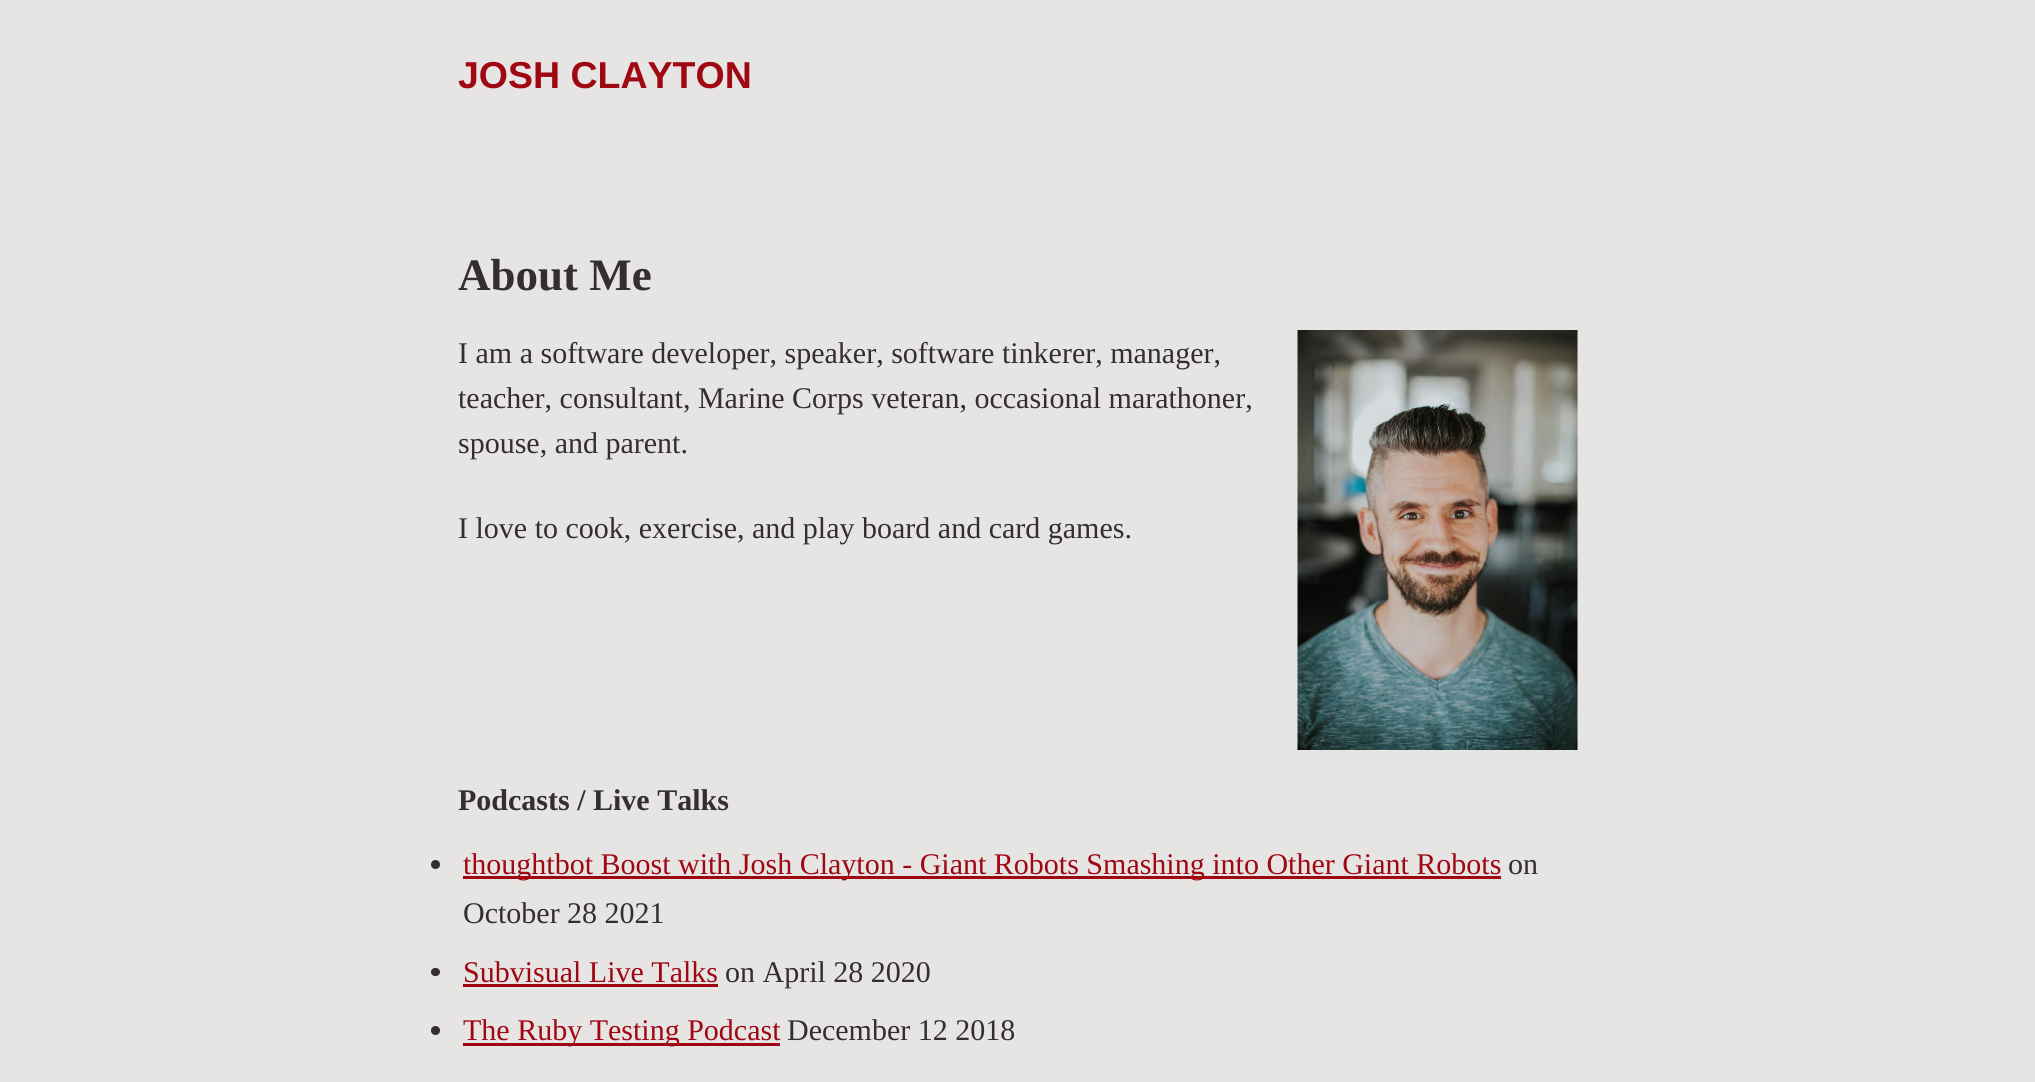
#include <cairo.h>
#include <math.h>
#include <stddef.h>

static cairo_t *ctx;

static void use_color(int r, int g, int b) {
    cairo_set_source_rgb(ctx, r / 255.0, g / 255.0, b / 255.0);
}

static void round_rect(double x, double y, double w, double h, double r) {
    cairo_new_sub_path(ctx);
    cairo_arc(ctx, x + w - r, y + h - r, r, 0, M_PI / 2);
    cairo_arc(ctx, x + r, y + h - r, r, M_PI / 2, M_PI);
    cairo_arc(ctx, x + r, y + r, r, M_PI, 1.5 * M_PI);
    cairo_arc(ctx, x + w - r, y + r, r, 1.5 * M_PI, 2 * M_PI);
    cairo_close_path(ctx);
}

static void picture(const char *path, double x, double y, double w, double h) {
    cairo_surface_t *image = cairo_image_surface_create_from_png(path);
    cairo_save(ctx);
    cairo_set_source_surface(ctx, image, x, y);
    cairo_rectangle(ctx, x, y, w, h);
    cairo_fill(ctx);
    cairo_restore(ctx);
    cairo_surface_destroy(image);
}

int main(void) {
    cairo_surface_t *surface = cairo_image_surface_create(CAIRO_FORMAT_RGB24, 2035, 1082);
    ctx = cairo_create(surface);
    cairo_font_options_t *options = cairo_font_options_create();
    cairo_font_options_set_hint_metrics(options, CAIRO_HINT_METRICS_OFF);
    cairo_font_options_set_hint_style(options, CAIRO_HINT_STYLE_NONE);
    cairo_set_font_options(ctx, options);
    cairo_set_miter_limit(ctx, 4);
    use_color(231, 229, 228);
    cairo_paint(ctx);
    cairo_select_font_face(ctx, "Liberation Sans", CAIRO_FONT_SLANT_NORMAL, CAIRO_FONT_WEIGHT_BOLD);
    cairo_set_font_size(ctx, 37.5);
    use_color(159, 7, 18);
    cairo_move_to(ctx, 458, 88);
    cairo_show_text(ctx, "JOSH CLAYTON");
    cairo_select_font_face(ctx, "Liberation Serif", CAIRO_FONT_SLANT_NORMAL, CAIRO_FONT_WEIGHT_BOLD);
    cairo_set_font_size(ctx, 45);
    use_color(51, 47, 46);
    cairo_move_to(ctx, 458, 290);
    cairo_show_text(ctx, "About Me");
    cairo_select_font_face(ctx, "Liberation Serif", CAIRO_FONT_SLANT_NORMAL, CAIRO_FONT_WEIGHT_NORMAL);
    cairo_set_font_size(ctx, 30);
    cairo_move_to(ctx, 458, 363);
    cairo_show_text(ctx, "I am a software developer, speaker, software tinkerer, manager,");
    cairo_move_to(ctx, 458, 408);
    cairo_show_text(ctx, "teacher, consultant, Marine Corps veteran, occasional marathoner,");
    cairo_move_to(ctx, 458, 453);
    cairo_show_text(ctx, "spouse, and parent.");
    cairo_move_to(ctx, 458, 538);
    cairo_show_text(ctx, "I love to cook, exercise, and play board and card games.");
    picture("img1.png", 1297, 330, 281, 420);
    cairo_select_font_face(ctx, "Liberation Serif", CAIRO_FONT_SLANT_NORMAL, CAIRO_FONT_WEIGHT_BOLD);
    cairo_move_to(ctx, 458, 810);
    cairo_show_text(ctx, "Podcasts / Live Talks");
    cairo_new_path(ctx);
    cairo_arc(ctx, 435.5, 864.5, 4.5, 0, 2 * M_PI);
    cairo_fill(ctx);
    use_color(159, 7, 18);
    cairo_rectangle(ctx, 463, 876, 1038, 3);
    cairo_fill(ctx);
    cairo_select_font_face(ctx, "Liberation Serif", CAIRO_FONT_SLANT_NORMAL, CAIRO_FONT_WEIGHT_NORMAL);
    cairo_move_to(ctx, 463, 874);
    cairo_show_text(ctx, "thoughtbot Boost with Josh Clayton - Giant Robots Smashing into Other Giant Robots");
    use_color(51, 47, 46);
    cairo_move_to(ctx, 1508, 874);
    cairo_show_text(ctx, "on");
    cairo_move_to(ctx, 463, 923);
    cairo_show_text(ctx, "October 28 2021");
    round_rect(431, 968, 9, 8, 4);
    cairo_fill(ctx);
    use_color(159, 7, 18);
    cairo_move_to(ctx, 463, 982);
    cairo_show_text(ctx, "Subvisual Live Talks");
    cairo_rectangle(ctx, 463, 984, 255, 3);
    cairo_fill(ctx);
    use_color(51, 47, 46);
    cairo_move_to(ctx, 725, 982);
    cairo_show_text(ctx, "on April 28 2020");
    cairo_new_path(ctx);
    cairo_arc(ctx, 435.5, 1030.5, 4.5, 0, 2 * M_PI);
    cairo_fill(ctx);
    use_color(159, 7, 18);
    cairo_rectangle(ctx, 463, 1043, 317, 3);
    cairo_fill(ctx);
    cairo_move_to(ctx, 463, 1040);
    cairo_show_text(ctx, "The Ruby Testing Podcast");
    use_color(51, 47, 46);
    cairo_move_to(ctx, 787, 1040);
    cairo_show_text(ctx, "December 12 2018");
    cairo_surface_write_to_png(surface, "result.png");
    cairo_font_options_destroy(options);
    cairo_destroy(ctx);
    cairo_surface_destroy(surface);
    return 0;
}
